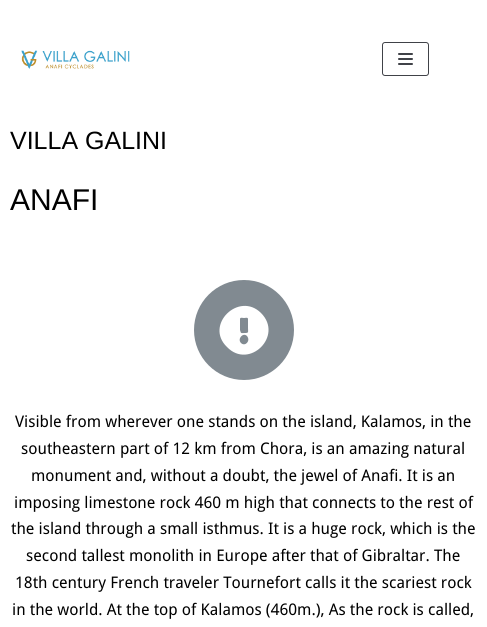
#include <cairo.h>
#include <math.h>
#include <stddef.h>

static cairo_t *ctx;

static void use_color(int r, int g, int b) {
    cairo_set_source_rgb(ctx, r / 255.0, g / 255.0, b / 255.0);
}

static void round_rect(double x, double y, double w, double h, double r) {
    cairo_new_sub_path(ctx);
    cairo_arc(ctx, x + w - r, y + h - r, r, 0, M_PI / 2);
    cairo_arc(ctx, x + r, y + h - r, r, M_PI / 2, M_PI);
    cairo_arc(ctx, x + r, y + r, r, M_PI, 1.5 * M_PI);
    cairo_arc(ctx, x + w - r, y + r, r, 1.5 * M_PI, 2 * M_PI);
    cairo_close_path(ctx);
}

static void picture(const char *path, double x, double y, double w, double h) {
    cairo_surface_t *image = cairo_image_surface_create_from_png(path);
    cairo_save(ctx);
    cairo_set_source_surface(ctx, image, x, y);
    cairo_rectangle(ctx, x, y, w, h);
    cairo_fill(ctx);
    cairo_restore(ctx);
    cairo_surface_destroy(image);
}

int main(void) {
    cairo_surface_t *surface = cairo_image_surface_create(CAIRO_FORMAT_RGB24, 487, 627);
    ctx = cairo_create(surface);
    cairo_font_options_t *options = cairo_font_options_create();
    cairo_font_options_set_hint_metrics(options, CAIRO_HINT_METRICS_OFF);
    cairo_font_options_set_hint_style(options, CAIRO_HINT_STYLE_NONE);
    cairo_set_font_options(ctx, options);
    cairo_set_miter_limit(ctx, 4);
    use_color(255, 255, 255);
    cairo_paint(ctx);
    picture("img1.png", 21, 50, 109, 19);
    round_rect(382.5, 42.5, 46, 33, 2.5);
    use_color(64, 66, 72);
    cairo_set_line_width(ctx, 1);
    cairo_stroke(ctx);
    round_rect(398, 53, 15, 2, 1);
    cairo_fill(ctx);
    round_rect(398, 58, 15, 2, 1);
    cairo_fill(ctx);
    round_rect(398, 63, 15, 2, 1);
    cairo_fill(ctx);
    cairo_select_font_face(ctx, "Liberation Sans", CAIRO_FONT_SLANT_NORMAL, CAIRO_FONT_WEIGHT_NORMAL);
    cairo_set_font_size(ctx, 25);
    use_color(0, 0, 0);
    cairo_move_to(ctx, 10, 149);
    cairo_show_text(ctx, "VILLA GALINI");
    cairo_set_font_size(ctx, 30);
    cairo_move_to(ctx, 10, 210);
    cairo_show_text(ctx, "ANAFI");
    use_color(129, 138, 145);
    cairo_new_path(ctx);
    cairo_arc(ctx, 244, 330, 50, 0, 2 * M_PI);
    cairo_fill(ctx);
    use_color(255, 255, 255);
    cairo_new_path(ctx);
    cairo_move_to(ctx, 261, 313);
    cairo_curve_to(ctx, 284, 336, 249, 370, 227, 347);
    cairo_curve_to(ctx, 204, 325, 239, 291, 261, 313);
    cairo_close_path(ctx);
    cairo_move_to(ctx, 247, 336);
    cairo_curve_to(ctx, 243, 332, 237, 339, 241, 343);
    cairo_curve_to(ctx, 245, 347, 251, 341, 247, 336);
    cairo_close_path(ctx);
    cairo_move_to(ctx, 240, 319);
    cairo_line_to(ctx, 240, 330);
    cairo_curve_to(ctx, 241, 334, 241, 333, 245, 333);
    cairo_curve_to(ctx, 249, 333, 248, 332, 248, 328);
    cairo_line_to(ctx, 248, 319);
    cairo_curve_to(ctx, 248, 317, 245, 318, 244, 318);
    cairo_curve_to(ctx, 243, 318, 240, 317, 240, 319);
    cairo_close_path(ctx);
    cairo_fill(ctx);
    cairo_select_font_face(ctx, "Droid Sans", CAIRO_FONT_SLANT_NORMAL, CAIRO_FONT_WEIGHT_NORMAL);
    cairo_set_font_size(ctx, 16);
    use_color(0, 0, 0);
    cairo_move_to(ctx, 15, 427);
    cairo_show_text(ctx, "Visible from wherever one stands on the island, Kalamos, in the");
    cairo_move_to(ctx, 21, 454);
    cairo_show_text(ctx, "southeastern part of 12 km from Chora, is an amazing natural");
    cairo_move_to(ctx, 31, 481);
    cairo_show_text(ctx, "monument and, without a doubt, the jewel of Anafi. It is an");
    cairo_move_to(ctx, 14, 508);
    cairo_show_text(ctx, "imposing limestone rock 460 m high that connects to the rest of");
    cairo_move_to(ctx, 11, 534);
    cairo_show_text(ctx, "the island through a small isthmus. It is a huge rock, which is the");
    cairo_move_to(ctx, 26, 561);
    cairo_show_text(ctx, "second tallest monolith in Europe after that of Gibraltar. The");
    cairo_move_to(ctx, 15, 588);
    cairo_show_text(ctx, "18th century French traveler Tournefort calls it the scariest rock");
    cairo_move_to(ctx, 12, 615);
    cairo_show_text(ctx, "in the world. At the top of Kalamos (460m.), As the rock is called,");
    cairo_surface_write_to_png(surface, "result.png");
    cairo_font_options_destroy(options);
    cairo_destroy(ctx);
    cairo_surface_destroy(surface);
    return 0;
}
